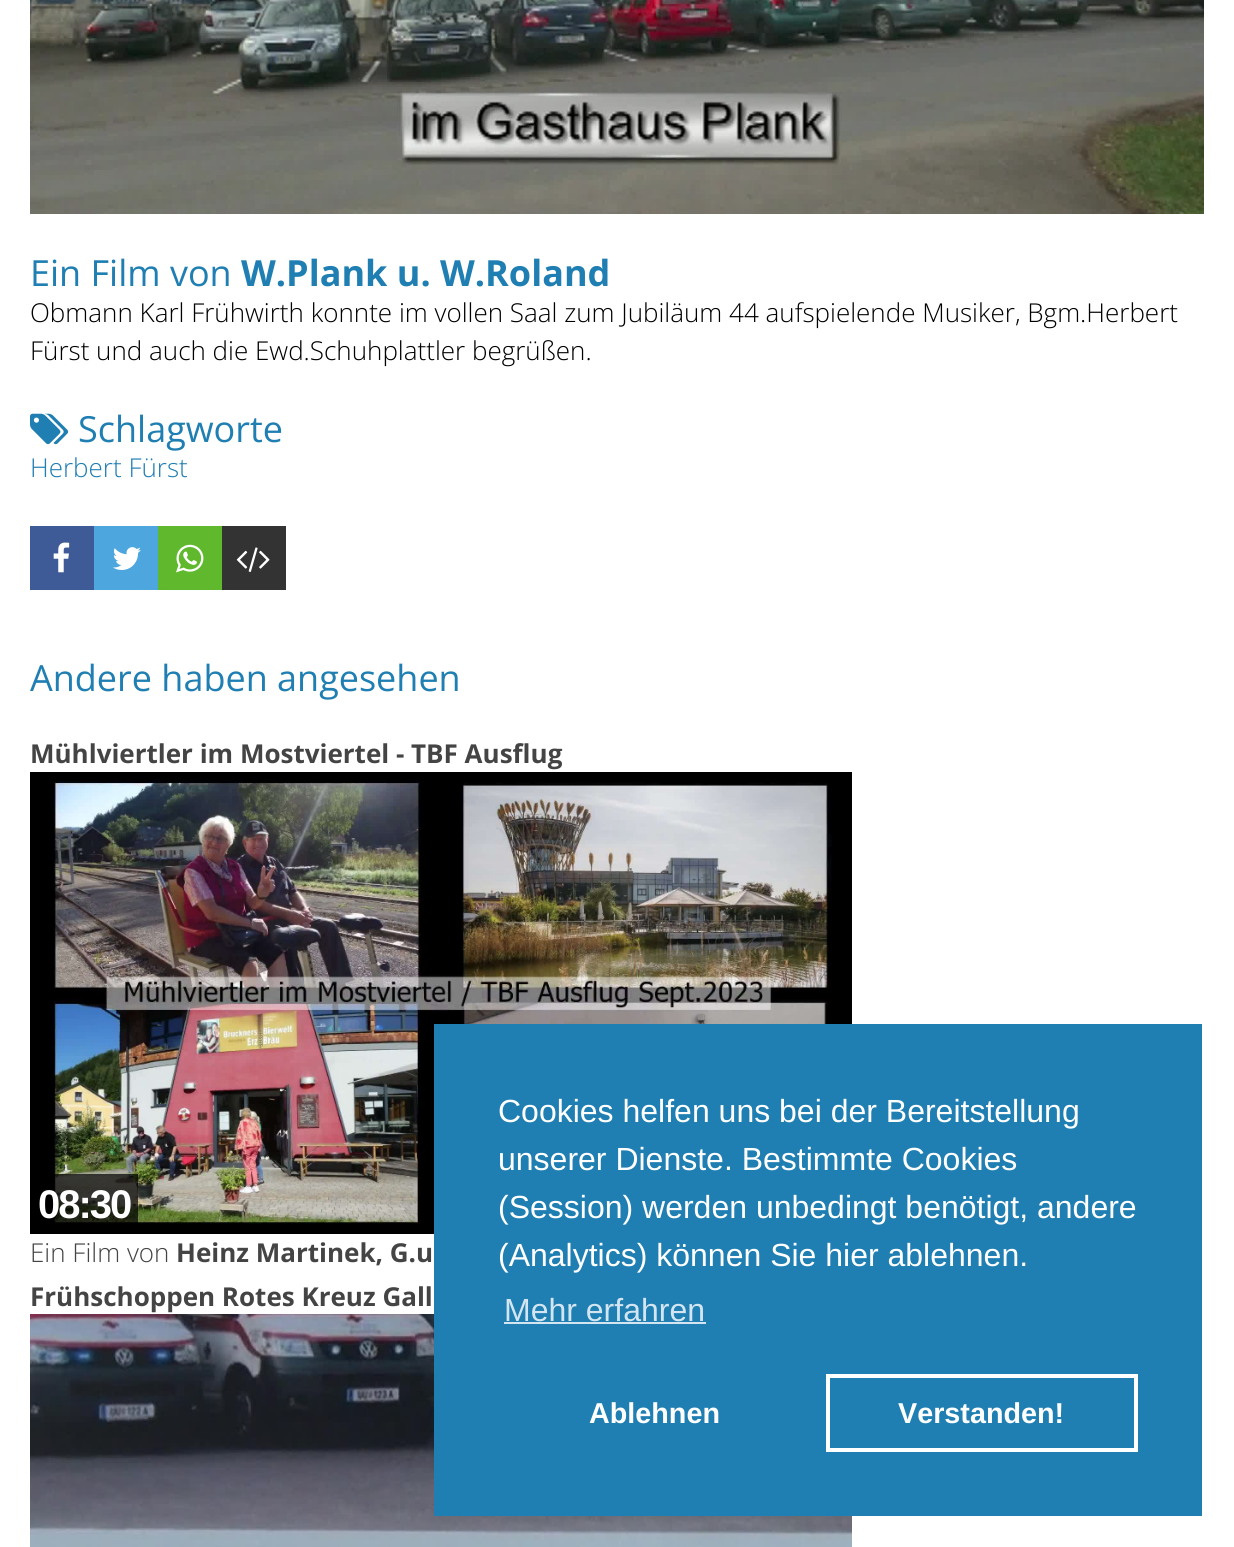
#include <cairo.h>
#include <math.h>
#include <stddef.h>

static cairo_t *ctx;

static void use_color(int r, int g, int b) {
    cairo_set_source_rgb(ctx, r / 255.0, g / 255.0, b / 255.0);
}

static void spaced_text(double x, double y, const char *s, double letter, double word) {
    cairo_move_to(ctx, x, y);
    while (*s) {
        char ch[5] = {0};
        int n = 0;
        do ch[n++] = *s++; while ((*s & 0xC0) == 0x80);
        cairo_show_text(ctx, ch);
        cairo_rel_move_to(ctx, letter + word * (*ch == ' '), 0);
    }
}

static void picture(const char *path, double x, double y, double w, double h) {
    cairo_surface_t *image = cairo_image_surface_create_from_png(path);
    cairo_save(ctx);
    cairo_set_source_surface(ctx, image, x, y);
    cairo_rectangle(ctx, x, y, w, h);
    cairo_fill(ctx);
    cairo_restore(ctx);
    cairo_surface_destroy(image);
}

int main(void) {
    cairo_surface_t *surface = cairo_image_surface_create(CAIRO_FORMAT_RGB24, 1234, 1547);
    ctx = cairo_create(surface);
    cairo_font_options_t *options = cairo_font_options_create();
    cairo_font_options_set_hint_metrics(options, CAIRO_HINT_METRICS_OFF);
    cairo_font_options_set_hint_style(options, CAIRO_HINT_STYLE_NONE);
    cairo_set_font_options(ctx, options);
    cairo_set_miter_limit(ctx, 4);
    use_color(255, 255, 255);
    cairo_paint(ctx);
    picture("img1.png", 30, 0, 1174, 214);
    cairo_select_font_face(ctx, "Open Sans", CAIRO_FONT_SLANT_NORMAL, CAIRO_FONT_WEIGHT_NORMAL);
    cairo_set_font_size(ctx, 36);
    use_color(31, 126, 178);
    cairo_move_to(ctx, 30, 286);
    cairo_show_text(ctx, "Ein Film von");
    cairo_select_font_face(ctx, "Open Sans", CAIRO_FONT_SLANT_NORMAL, CAIRO_FONT_WEIGHT_BOLD);
    cairo_move_to(ctx, 241, 286);
    cairo_show_text(ctx, "W.Plank u. W.Roland");
    cairo_select_font_face(ctx, "Open Sans Light", CAIRO_FONT_SLANT_NORMAL, CAIRO_FONT_WEIGHT_NORMAL);
    cairo_set_font_size(ctx, 26);
    use_color(0, 0, 0);
    cairo_move_to(ctx, 30, 322);
    cairo_show_text(ctx, "Obmann Karl Frühwirth konnte im vollen Saal zum Jubiläum 44 aufspielende Musiker, Bgm.Herbert");
    cairo_move_to(ctx, 30, 360);
    cairo_show_text(ctx, "Fürst und auch die Ewd.Schuhplattler begrüßen.");
    picture("img2.png", 30, 413, 39, 32);
    cairo_select_font_face(ctx, "Open Sans", CAIRO_FONT_SLANT_NORMAL, CAIRO_FONT_WEIGHT_NORMAL);
    cairo_set_font_size(ctx, 36);
    use_color(31, 126, 178);
    cairo_move_to(ctx, 78, 442);
    cairo_show_text(ctx, "Schlagworte");
    cairo_select_font_face(ctx, "Open Sans Light", CAIRO_FONT_SLANT_NORMAL, CAIRO_FONT_WEIGHT_NORMAL);
    cairo_set_font_size(ctx, 26);
    cairo_move_to(ctx, 30, 477);
    cairo_show_text(ctx, "Herbert Fürst");
    use_color(62, 91, 152);
    cairo_rectangle(ctx, 30, 526, 64, 64);
    cairo_fill(ctx);
    picture("img3.png", 53, 542, 17, 31);
    use_color(77, 167, 222);
    cairo_rectangle(ctx, 94, 526, 64, 64);
    cairo_fill(ctx);
    picture("img4.png", 113, 547, 28, 23);
    use_color(96, 184, 45);
    cairo_rectangle(ctx, 158, 526, 64, 64);
    cairo_fill(ctx);
    picture("img5.png", 176, 544, 28, 29);
    use_color(51, 51, 51);
    cairo_rectangle(ctx, 222, 526, 64, 64);
    cairo_fill(ctx);
    picture("img6.png", 236, 547, 34, 25);
    cairo_select_font_face(ctx, "Open Sans", CAIRO_FONT_SLANT_NORMAL, CAIRO_FONT_WEIGHT_NORMAL);
    cairo_set_font_size(ctx, 36);
    use_color(31, 126, 178);
    cairo_move_to(ctx, 30, 691);
    cairo_show_text(ctx, "Andere haben angesehen");
    cairo_select_font_face(ctx, "Open Sans", CAIRO_FONT_SLANT_NORMAL, CAIRO_FONT_WEIGHT_BOLD);
    cairo_set_font_size(ctx, 26);
    use_color(68, 68, 68);
    cairo_move_to(ctx, 30, 763);
    cairo_show_text(ctx, "Mühlviertler im Mostviertel - TBF Ausflug");
    picture("img7.png", 30, 772, 822, 462);
    cairo_set_source_rgba(ctx, 0, 0, 0, 0.7);
    cairo_rectangle(ctx, 51, 1174, 87, 50);
    cairo_fill(ctx);
    cairo_select_font_face(ctx, "Liberation Sans", CAIRO_FONT_SLANT_NORMAL, CAIRO_FONT_WEIGHT_BOLD);
    cairo_set_font_size(ctx, 40);
    use_color(255, 255, 255);
    spaced_text(38, 1218, "08:30", -2, 0);
    cairo_select_font_face(ctx, "Open Sans Light", CAIRO_FONT_SLANT_NORMAL, CAIRO_FONT_WEIGHT_NORMAL);
    cairo_set_font_size(ctx, 26);
    use_color(68, 68, 68);
    cairo_move_to(ctx, 30, 1262);
    cairo_show_text(ctx, "Ein Film von");
    cairo_select_font_face(ctx, "Open Sans", CAIRO_FONT_SLANT_NORMAL, CAIRO_FONT_WEIGHT_BOLD);
    cairo_move_to(ctx, 176, 1262);
    cairo_show_text(ctx, "Heinz Martinek, G.u");
    cairo_move_to(ctx, 30, 1306);
    cairo_show_text(ctx, "Frühschoppen Rotes Kreuz Gall");
    picture("img8.png", 30, 1314, 822, 233);
    use_color(31, 126, 178);
    cairo_rectangle(ctx, 434, 1024, 768, 492);
    cairo_fill(ctx);
    cairo_select_font_face(ctx, "Liberation Sans", CAIRO_FONT_SLANT_NORMAL, CAIRO_FONT_WEIGHT_NORMAL);
    cairo_set_font_size(ctx, 32);
    use_color(255, 255, 255);
    cairo_move_to(ctx, 498, 1122);
    cairo_show_text(ctx, "Cookies helfen uns bei der Bereitstellung");
    cairo_move_to(ctx, 498, 1170);
    cairo_show_text(ctx, "unserer Dienste. Bestimmte Cookies");
    cairo_move_to(ctx, 498, 1218);
    cairo_show_text(ctx, "(Session) werden unbedingt benötigt, andere");
    cairo_move_to(ctx, 498, 1266);
    cairo_show_text(ctx, "(Analytics) können Sie hier ablehnen.");
    use_color(210, 229, 240);
    cairo_move_to(ctx, 504, 1321);
    cairo_show_text(ctx, "Mehr erfahren");
    cairo_rectangle(ctx, 504, 1322, 202, 2);
    cairo_fill(ctx);
    cairo_select_font_face(ctx, "Liberation Sans", CAIRO_FONT_SLANT_NORMAL, CAIRO_FONT_WEIGHT_BOLD);
    cairo_set_font_size(ctx, 28.75);
    use_color(255, 255, 255);
    cairo_move_to(ctx, 589, 1423);
    cairo_show_text(ctx, "Ablehnen");
    cairo_rectangle(ctx, 828, 1376, 308, 74);
    cairo_set_line_width(ctx, 4);
    cairo_stroke(ctx);
    cairo_move_to(ctx, 898, 1423);
    cairo_show_text(ctx, "Verstanden!");
    cairo_surface_write_to_png(surface, "result.png");
    cairo_font_options_destroy(options);
    cairo_destroy(ctx);
    cairo_surface_destroy(surface);
    return 0;
}
